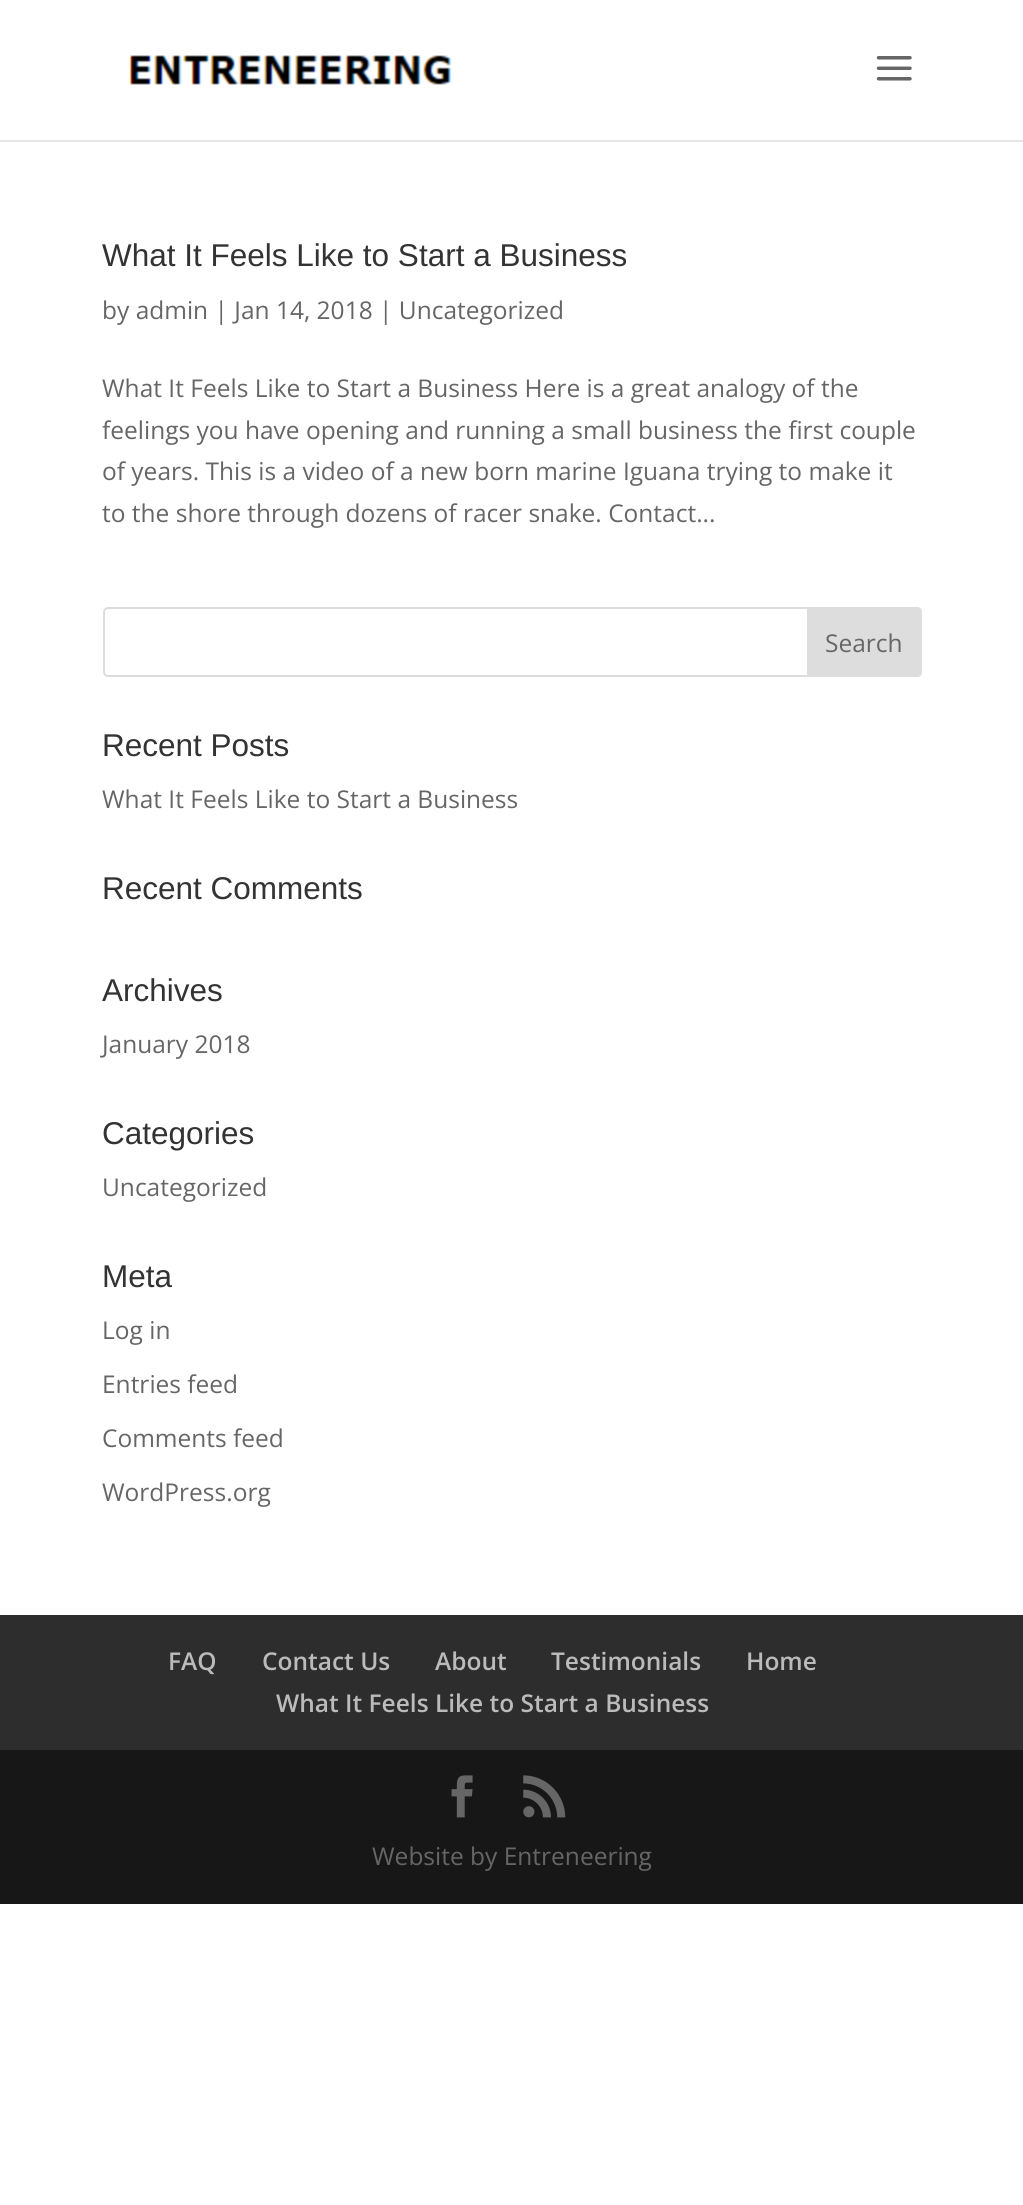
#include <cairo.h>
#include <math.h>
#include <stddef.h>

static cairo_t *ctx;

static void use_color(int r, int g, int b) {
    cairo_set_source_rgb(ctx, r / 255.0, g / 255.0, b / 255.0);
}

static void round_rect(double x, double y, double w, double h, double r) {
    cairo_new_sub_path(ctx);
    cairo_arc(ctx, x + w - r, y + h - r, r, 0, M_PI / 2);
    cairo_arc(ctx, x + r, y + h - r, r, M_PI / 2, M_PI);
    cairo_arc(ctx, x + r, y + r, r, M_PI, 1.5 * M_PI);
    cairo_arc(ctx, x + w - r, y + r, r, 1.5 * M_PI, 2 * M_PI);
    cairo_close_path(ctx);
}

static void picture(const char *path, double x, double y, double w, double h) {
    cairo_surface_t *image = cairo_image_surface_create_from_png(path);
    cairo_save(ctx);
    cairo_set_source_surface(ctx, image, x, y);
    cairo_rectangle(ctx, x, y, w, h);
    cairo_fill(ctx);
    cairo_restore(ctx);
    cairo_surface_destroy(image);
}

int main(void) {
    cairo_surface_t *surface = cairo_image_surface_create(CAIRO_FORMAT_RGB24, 1023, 2205);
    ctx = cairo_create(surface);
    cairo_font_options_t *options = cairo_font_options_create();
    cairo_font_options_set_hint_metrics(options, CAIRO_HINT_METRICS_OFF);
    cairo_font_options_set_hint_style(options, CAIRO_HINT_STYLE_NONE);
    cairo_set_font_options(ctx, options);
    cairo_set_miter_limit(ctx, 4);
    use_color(255, 255, 255);
    cairo_paint(ctx);
    use_color(230, 230, 230);
    cairo_new_path(ctx);
    cairo_move_to(ctx, 0, 140);
    cairo_line_to(ctx, 0, 142);
    cairo_line_to(ctx, 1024, 142);
    cairo_line_to(ctx, 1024, 2);
    cairo_line_to(ctx, 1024, 140);
    cairo_close_path(ctx);
    cairo_fill(ctx);
    picture("img1.png", 128, 55, 324, 30);
    picture("img2.png", 876, 56, 36, 25);
    cairo_select_font_face(ctx, "Liberation Sans", CAIRO_FONT_SLANT_NORMAL, CAIRO_FONT_WEIGHT_NORMAL);
    cairo_set_font_size(ctx, 31.5);
    use_color(51, 51, 51);
    cairo_move_to(ctx, 102, 266);
    cairo_show_text(ctx, "What It Feels Like to Start a Business");
    cairo_select_font_face(ctx, "Open Sans", CAIRO_FONT_SLANT_NORMAL, CAIRO_FONT_WEIGHT_NORMAL);
    cairo_set_font_size(ctx, 24.5);
    use_color(102, 102, 102);
    cairo_move_to(ctx, 102, 319);
    cairo_show_text(ctx, "by admin | Jan 14, 2018 | Uncategorized");
    cairo_move_to(ctx, 102, 397);
    cairo_show_text(ctx, "What It Feels Like to Start a Business Here is a great analogy of the");
    cairo_move_to(ctx, 102, 439);
    cairo_show_text(ctx, "feelings you have opening and running a small business the first couple");
    cairo_move_to(ctx, 102, 480);
    cairo_show_text(ctx, "of years. This is a video of a new born marine Iguana trying to make it");
    cairo_move_to(ctx, 102, 522);
    cairo_show_text(ctx, "to the shore through dozens of racer snake. Contact...");
    round_rect(104, 608, 817, 68, 4);
    use_color(221, 221, 221);
    cairo_stroke(ctx);
    cairo_new_path(ctx);
    cairo_move_to(ctx, 808, 608);
    cairo_line_to(ctx, 917, 608);
    cairo_curve_to(ctx, 919, 608, 921, 610, 921, 612);
    cairo_line_to(ctx, 921, 672);
    cairo_curve_to(ctx, 921, 674, 919, 676, 917, 676);
    cairo_line_to(ctx, 808, 676);
    cairo_close_path(ctx);
    cairo_fill_preserve(ctx);
    cairo_stroke(ctx);
    use_color(102, 102, 102);
    cairo_move_to(ctx, 825, 652);
    cairo_show_text(ctx, "Search");
    cairo_select_font_face(ctx, "Liberation Sans", CAIRO_FONT_SLANT_NORMAL, CAIRO_FONT_WEIGHT_NORMAL);
    cairo_set_font_size(ctx, 31.5);
    use_color(51, 51, 51);
    cairo_move_to(ctx, 102, 756);
    cairo_show_text(ctx, "Recent Posts");
    cairo_select_font_face(ctx, "Open Sans", CAIRO_FONT_SLANT_NORMAL, CAIRO_FONT_WEIGHT_NORMAL);
    cairo_set_font_size(ctx, 24.5);
    use_color(102, 102, 102);
    cairo_move_to(ctx, 102, 808);
    cairo_show_text(ctx, "What It Feels Like to Start a Business");
    cairo_select_font_face(ctx, "Liberation Sans", CAIRO_FONT_SLANT_NORMAL, CAIRO_FONT_WEIGHT_NORMAL);
    cairo_set_font_size(ctx, 31.5);
    use_color(51, 51, 51);
    cairo_move_to(ctx, 102, 899);
    cairo_show_text(ctx, "Recent Comments");
    cairo_move_to(ctx, 102, 1001);
    cairo_show_text(ctx, "Archives");
    cairo_select_font_face(ctx, "Open Sans", CAIRO_FONT_SLANT_NORMAL, CAIRO_FONT_WEIGHT_NORMAL);
    cairo_set_font_size(ctx, 24.5);
    use_color(102, 102, 102);
    cairo_move_to(ctx, 102, 1053);
    cairo_show_text(ctx, "January 2018");
    cairo_select_font_face(ctx, "Liberation Sans", CAIRO_FONT_SLANT_NORMAL, CAIRO_FONT_WEIGHT_NORMAL);
    cairo_set_font_size(ctx, 31.5);
    use_color(51, 51, 51);
    cairo_move_to(ctx, 102, 1144);
    cairo_show_text(ctx, "Categories");
    cairo_select_font_face(ctx, "Open Sans", CAIRO_FONT_SLANT_NORMAL, CAIRO_FONT_WEIGHT_NORMAL);
    cairo_set_font_size(ctx, 24.5);
    use_color(102, 102, 102);
    cairo_move_to(ctx, 102, 1196);
    cairo_show_text(ctx, "Uncategorized");
    cairo_select_font_face(ctx, "Liberation Sans", CAIRO_FONT_SLANT_NORMAL, CAIRO_FONT_WEIGHT_NORMAL);
    cairo_set_font_size(ctx, 31.5);
    use_color(51, 51, 51);
    cairo_move_to(ctx, 102, 1287);
    cairo_show_text(ctx, "Meta");
    cairo_select_font_face(ctx, "Open Sans", CAIRO_FONT_SLANT_NORMAL, CAIRO_FONT_WEIGHT_NORMAL);
    cairo_set_font_size(ctx, 24.5);
    use_color(102, 102, 102);
    cairo_move_to(ctx, 102, 1339);
    cairo_show_text(ctx, "Log in");
    cairo_move_to(ctx, 102, 1393);
    cairo_show_text(ctx, "Entries feed");
    cairo_move_to(ctx, 102, 1447);
    cairo_show_text(ctx, "Comments feed");
    cairo_move_to(ctx, 102, 1501);
    cairo_show_text(ctx, "WordPress.org");
    use_color(45, 45, 45);
    cairo_rectangle(ctx, 0, 1615, 1023, 135);
    cairo_fill(ctx);
    cairo_select_font_face(ctx, "Open Sans SemiBold", CAIRO_FONT_SLANT_NORMAL, CAIRO_FONT_WEIGHT_NORMAL);
    use_color(187, 187, 187);
    cairo_move_to(ctx, 168, 1670);
    cairo_show_text(ctx, "FAQ");
    cairo_move_to(ctx, 262, 1670);
    cairo_show_text(ctx, "Contact Us");
    cairo_move_to(ctx, 435, 1670);
    cairo_show_text(ctx, "About");
    cairo_move_to(ctx, 551, 1670);
    cairo_show_text(ctx, "Testimonials");
    cairo_move_to(ctx, 746, 1670);
    cairo_show_text(ctx, "Home");
    cairo_move_to(ctx, 276, 1712);
    cairo_show_text(ctx, "What It Feels Like to Start a Business");
    use_color(23, 23, 23);
    cairo_rectangle(ctx, 0, 1750, 1023, 154);
    cairo_fill(ctx);
    picture("img3.png", 451, 1775, 22, 43);
    picture("img4.png", 523, 1775, 43, 43);
    cairo_select_font_face(ctx, "Open Sans", CAIRO_FONT_SLANT_NORMAL, CAIRO_FONT_WEIGHT_NORMAL);
    use_color(102, 102, 102);
    cairo_move_to(ctx, 372, 1865);
    cairo_show_text(ctx, "Website by Entreneering");
    cairo_surface_write_to_png(surface, "result.png");
    cairo_font_options_destroy(options);
    cairo_destroy(ctx);
    cairo_surface_destroy(surface);
    return 0;
}
